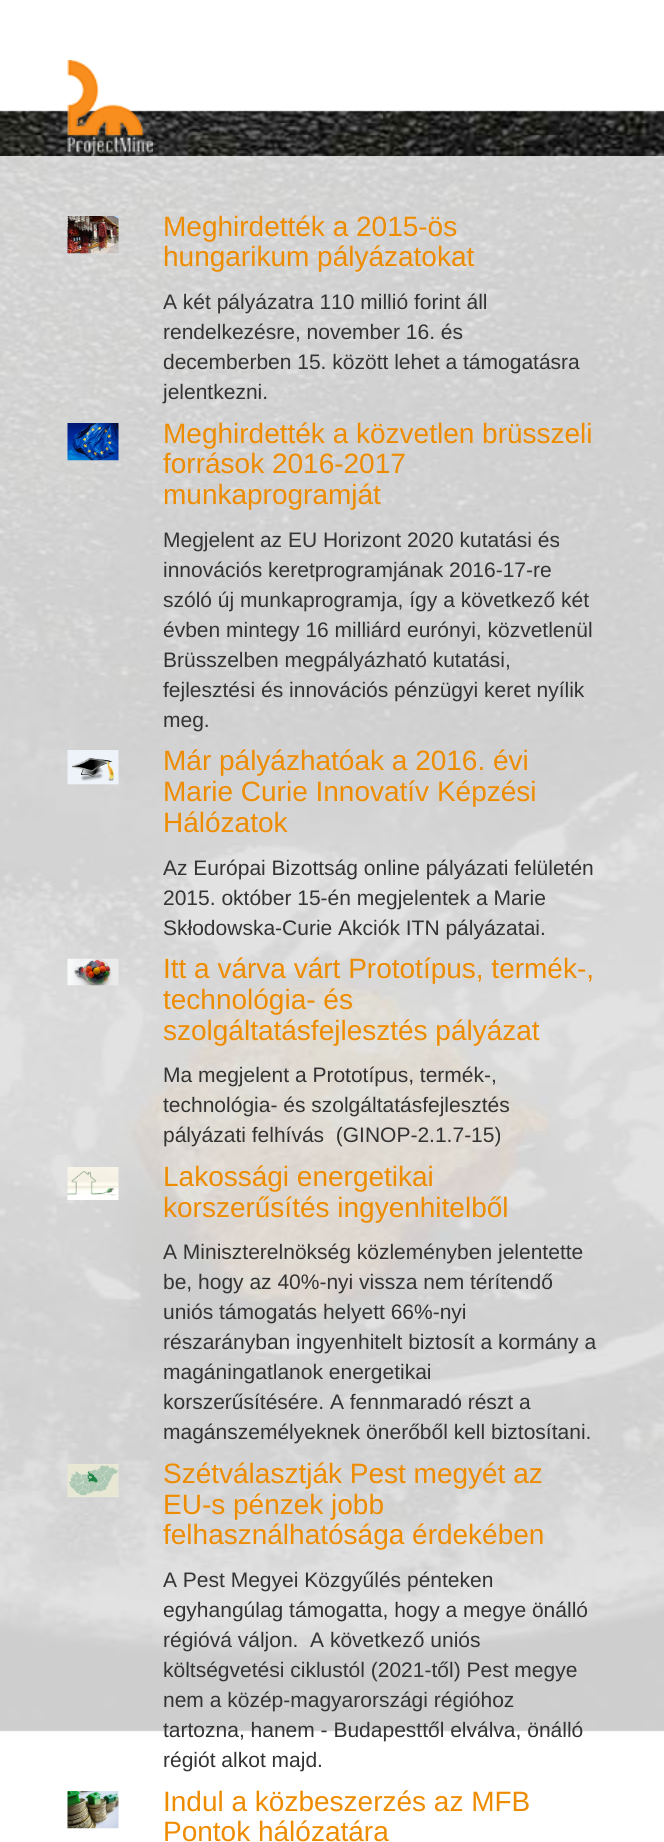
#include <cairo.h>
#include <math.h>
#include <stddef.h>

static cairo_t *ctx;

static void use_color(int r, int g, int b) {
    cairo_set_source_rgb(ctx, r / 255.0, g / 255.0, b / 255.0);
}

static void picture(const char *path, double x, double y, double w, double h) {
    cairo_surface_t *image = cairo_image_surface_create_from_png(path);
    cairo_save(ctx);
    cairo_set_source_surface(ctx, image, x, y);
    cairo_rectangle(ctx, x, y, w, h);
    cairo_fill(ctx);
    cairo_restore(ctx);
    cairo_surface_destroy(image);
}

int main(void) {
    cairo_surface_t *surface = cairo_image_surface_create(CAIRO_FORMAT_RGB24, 664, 1842);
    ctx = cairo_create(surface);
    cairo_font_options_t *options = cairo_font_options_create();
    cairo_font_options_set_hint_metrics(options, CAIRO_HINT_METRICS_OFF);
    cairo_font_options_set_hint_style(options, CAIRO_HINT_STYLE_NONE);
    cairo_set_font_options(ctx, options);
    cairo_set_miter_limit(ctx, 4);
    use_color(255, 255, 255);
    cairo_paint(ctx);
    picture("img1.png", 0, 110, 664, 1622);
    picture("img2.png", 67, 60, 86, 96);
    picture("img3.png", 67, 216, 52, 38);
    cairo_select_font_face(ctx, "Liberation Sans", CAIRO_FONT_SLANT_NORMAL, CAIRO_FONT_WEIGHT_NORMAL);
    cairo_set_font_size(ctx, 28);
    use_color(238, 140, 1);
    cairo_move_to(ctx, 163, 236);
    cairo_show_text(ctx, "Meghirdették a 2015-ös");
    cairo_move_to(ctx, 163, 266);
    cairo_show_text(ctx, "hungarikum pályázatokat");
    cairo_set_font_size(ctx, 21);
    use_color(51, 51, 51);
    cairo_move_to(ctx, 163, 309);
    cairo_show_text(ctx, "A két pályázatra 110 millió forint áll");
    cairo_move_to(ctx, 163, 339);
    cairo_show_text(ctx, "rendelkezésre, november 16. és");
    cairo_move_to(ctx, 163, 369);
    cairo_show_text(ctx, "decemberben 15. között lehet a támogatásra");
    cairo_move_to(ctx, 163, 399);
    cairo_show_text(ctx, "jelentkezni.");
    picture("img4.png", 67, 423, 52, 38);
    cairo_set_font_size(ctx, 28);
    use_color(238, 140, 1);
    cairo_move_to(ctx, 163, 443);
    cairo_show_text(ctx, "Meghirdették a közvetlen brüsszeli");
    cairo_move_to(ctx, 163, 473);
    cairo_show_text(ctx, "források 2016-2017");
    cairo_move_to(ctx, 163, 504);
    cairo_show_text(ctx, "munkaprogramját");
    cairo_set_font_size(ctx, 21);
    use_color(51, 51, 51);
    cairo_move_to(ctx, 163, 547);
    cairo_show_text(ctx, "Megjelent az EU Horizont 2020 kutatási és");
    cairo_move_to(ctx, 163, 577);
    cairo_show_text(ctx, "innovációs keretprogramjának 2016-17-re");
    cairo_move_to(ctx, 163, 607);
    cairo_show_text(ctx, "szóló új munkaprogramja, így a következő két");
    cairo_move_to(ctx, 163, 637);
    cairo_show_text(ctx, "évben mintegy 16 milliárd eurónyi, közvetlenül");
    cairo_move_to(ctx, 163, 667);
    cairo_show_text(ctx, "Brüsszelben megpályázható kutatási,");
    cairo_move_to(ctx, 163, 697);
    cairo_show_text(ctx, "fejlesztési és innovációs pénzügyi keret nyílik");
    cairo_move_to(ctx, 163, 727);
    cairo_show_text(ctx, "meg.");
    picture("img5.png", 67, 750, 52, 35);
    cairo_set_font_size(ctx, 28);
    use_color(238, 140, 1);
    cairo_move_to(ctx, 163, 770);
    cairo_show_text(ctx, "Már pályázhatóak a 2016. évi");
    cairo_move_to(ctx, 163, 801);
    cairo_show_text(ctx, "Marie Curie Innovatív Képzési");
    cairo_move_to(ctx, 163, 832);
    cairo_show_text(ctx, "Hálózatok");
    cairo_set_font_size(ctx, 21);
    use_color(51, 51, 51);
    cairo_move_to(ctx, 163, 875);
    cairo_show_text(ctx, "Az Európai Bizottság online pályázati felületén");
    cairo_move_to(ctx, 163, 905);
    cairo_show_text(ctx, "2015. október 15-én megjelentek a Marie");
    cairo_move_to(ctx, 163, 935);
    cairo_show_text(ctx, "Skłodowska-Curie Akciók ITN pályázatai.");
    picture("img6.png", 67, 958, 52, 28);
    cairo_set_font_size(ctx, 28);
    use_color(238, 140, 1);
    cairo_move_to(ctx, 163, 978);
    cairo_show_text(ctx, "Itt a várva várt Prototípus, termék-,");
    cairo_move_to(ctx, 163, 1009);
    cairo_show_text(ctx, "technológia- és");
    cairo_move_to(ctx, 163, 1040);
    cairo_show_text(ctx, "szolgáltatásfejlesztés pályázat");
    cairo_set_font_size(ctx, 21);
    use_color(51, 51, 51);
    cairo_move_to(ctx, 163, 1082);
    cairo_show_text(ctx, "Ma megjelent a Prototípus, termék-,");
    cairo_move_to(ctx, 163, 1112);
    cairo_show_text(ctx, "technológia- és szolgáltatásfejlesztés");
    cairo_move_to(ctx, 163, 1142);
    cairo_show_text(ctx, "pályázati felhívás  (GINOP-2.1.7-15)");
    picture("img7.png", 67, 1167, 52, 33);
    cairo_set_font_size(ctx, 28);
    use_color(238, 140, 1);
    cairo_move_to(ctx, 163, 1186);
    cairo_show_text(ctx, "Lakossági energetikai");
    cairo_move_to(ctx, 163, 1217);
    cairo_show_text(ctx, "korszerűsítés ingyenhitelből");
    cairo_set_font_size(ctx, 21);
    use_color(51, 51, 51);
    cairo_move_to(ctx, 163, 1259);
    cairo_show_text(ctx, "A Miniszterelnökség közleményben jelentette");
    cairo_move_to(ctx, 163, 1289);
    cairo_show_text(ctx, "be, hogy az 40%-nyi vissza nem térítendő");
    cairo_move_to(ctx, 163, 1319);
    cairo_show_text(ctx, "uniós támogatás helyett 66%-nyi");
    cairo_move_to(ctx, 163, 1349);
    cairo_show_text(ctx, "részarányban ingyenhitelt biztosít a kormány a");
    cairo_move_to(ctx, 163, 1379);
    cairo_show_text(ctx, "magáningatlanok energetikai");
    cairo_move_to(ctx, 163, 1409);
    cairo_show_text(ctx, "korszerűsítésére. A fennmaradó részt a");
    cairo_move_to(ctx, 163, 1439);
    cairo_show_text(ctx, "magánszemélyeknek önerőből kell biztosítani.");
    picture("img8.png", 67, 1464, 52, 33);
    cairo_set_font_size(ctx, 28);
    use_color(238, 140, 1);
    cairo_move_to(ctx, 163, 1483);
    cairo_show_text(ctx, "Szétválasztják Pest megyét az");
    cairo_move_to(ctx, 163, 1514);
    cairo_show_text(ctx, "EU-s pénzek jobb");
    cairo_move_to(ctx, 163, 1544);
    cairo_show_text(ctx, "felhasználhatósága érdekében");
    cairo_set_font_size(ctx, 21);
    use_color(51, 51, 51);
    cairo_move_to(ctx, 163, 1587);
    cairo_show_text(ctx, "A Pest Megyei Közgyűlés pénteken");
    cairo_move_to(ctx, 163, 1617);
    cairo_show_text(ctx, "egyhangúlag támogatta, hogy a megye önálló");
    cairo_move_to(ctx, 163, 1647);
    cairo_show_text(ctx, "régióvá váljon.  A következő uniós");
    cairo_move_to(ctx, 163, 1677);
    cairo_show_text(ctx, "költségvetési ciklustól (2021-től) Pest megye");
    cairo_move_to(ctx, 163, 1707);
    cairo_show_text(ctx, "nem a közép-magyarországi régióhoz");
    cairo_move_to(ctx, 163, 1737);
    cairo_show_text(ctx, "tartozna, hanem - Budapesttől elválva, önálló");
    cairo_move_to(ctx, 163, 1767);
    cairo_show_text(ctx, "régiót alkot majd.");
    picture("img9.png", 67, 1791, 52, 38);
    cairo_set_font_size(ctx, 28);
    use_color(238, 140, 1);
    cairo_move_to(ctx, 163, 1811);
    cairo_show_text(ctx, "Indul a közbeszerzés az MFB");
    cairo_move_to(ctx, 163, 1841);
    cairo_show_text(ctx, "Pontok hálózatára");
    cairo_surface_write_to_png(surface, "result.png");
    cairo_font_options_destroy(options);
    cairo_destroy(ctx);
    cairo_surface_destroy(surface);
    return 0;
}
